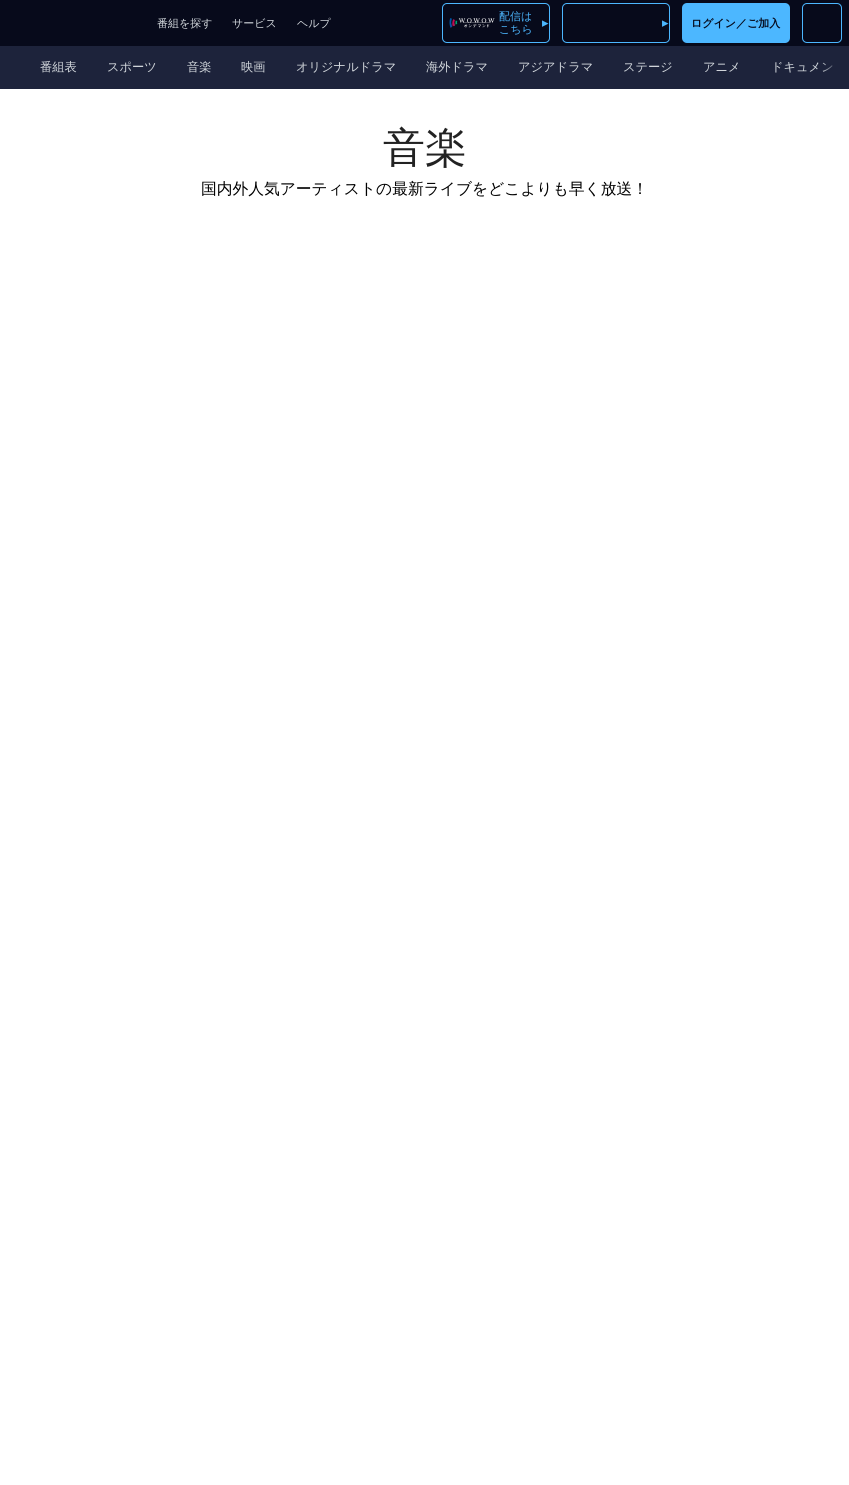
#include <cairo.h>
#include <math.h>
#include <stddef.h>

static cairo_t *ctx;

static void use_color(int r, int g, int b) {
    cairo_set_source_rgb(ctx, r / 255.0, g / 255.0, b / 255.0);
}

static void round_rect(double x, double y, double w, double h, double r) {
    cairo_new_sub_path(ctx);
    cairo_arc(ctx, x + w - r, y + h - r, r, 0, M_PI / 2);
    cairo_arc(ctx, x + r, y + h - r, r, M_PI / 2, M_PI);
    cairo_arc(ctx, x + r, y + r, r, M_PI, 1.5 * M_PI);
    cairo_arc(ctx, x + w - r, y + r, r, 1.5 * M_PI, 2 * M_PI);
    cairo_close_path(ctx);
}

static void picture(const char *path, double x, double y, double w, double h) {
    cairo_surface_t *image = cairo_image_surface_create_from_png(path);
    cairo_save(ctx);
    cairo_set_source_surface(ctx, image, x, y);
    cairo_rectangle(ctx, x, y, w, h);
    cairo_fill(ctx);
    cairo_restore(ctx);
    cairo_surface_destroy(image);
}

int main(void) {
    cairo_surface_t *surface = cairo_image_surface_create(CAIRO_FORMAT_RGB24, 849, 1485);
    ctx = cairo_create(surface);
    cairo_font_options_t *options = cairo_font_options_create();
    cairo_font_options_set_hint_metrics(options, CAIRO_HINT_METRICS_OFF);
    cairo_font_options_set_hint_style(options, CAIRO_HINT_STYLE_NONE);
    cairo_set_font_options(ctx, options);
    cairo_set_miter_limit(ctx, 4);
    cairo_pattern_t *gradient;
    use_color(255, 255, 255);
    cairo_paint(ctx);
    use_color(7, 10, 27);
    cairo_rectangle(ctx, 0, 0, 849, 46);
    cairo_fill(ctx);
    cairo_select_font_face(ctx, "WenQuanYi Zen Hei Medium", CAIRO_FONT_SLANT_NORMAL, CAIRO_FONT_WEIGHT_NORMAL);
    cairo_set_font_size(ctx, 11);
    use_color(210, 215, 220);
    cairo_move_to(ctx, 157, 27);
    cairo_show_text(ctx, "番組を探す");
    cairo_move_to(ctx, 232, 27);
    cairo_show_text(ctx, "サービス");
    cairo_move_to(ctx, 297, 27);
    cairo_show_text(ctx, "ヘルプ");
    round_rect(442.5, 3.5, 107, 39, 4.5);
    use_color(76, 183, 255);
    cairo_set_line_width(ctx, 1);
    cairo_stroke(ctx);
    picture("img1.png", 449, 18, 46, 10);
    cairo_move_to(ctx, 499, 20);
    cairo_show_text(ctx, "配信は");
    cairo_move_to(ctx, 499, 33);
    cairo_show_text(ctx, "こちら");
    cairo_select_font_face(ctx, "DejaVu Sans", CAIRO_FONT_SLANT_NORMAL, CAIRO_FONT_WEIGHT_NORMAL);
    cairo_set_font_size(ctx, 13);
    cairo_move_to(ctx, 542, 27);
    cairo_show_text(ctx, "▸");
    round_rect(562.5, 3.5, 107, 39, 4.5);
    cairo_stroke(ctx);
    cairo_move_to(ctx, 662, 27);
    cairo_show_text(ctx, "▸");
    round_rect(682, 3, 108, 40, 5);
    cairo_fill(ctx);
    cairo_select_font_face(ctx, "WenQuanYi Zen Hei", CAIRO_FONT_SLANT_NORMAL, CAIRO_FONT_WEIGHT_BOLD);
    cairo_set_font_size(ctx, 11);
    use_color(5, 10, 27);
    cairo_move_to(ctx, 691, 27);
    cairo_show_text(ctx, "ログイン／ご加入");
    round_rect(802.5, 3.5, 39, 39, 4.5);
    use_color(76, 183, 255);
    cairo_stroke(ctx);
    use_color(29, 35, 59);
    cairo_rectangle(ctx, 0, 46, 849, 43);
    cairo_fill(ctx);
    cairo_select_font_face(ctx, "WenQuanYi Zen Hei Medium", CAIRO_FONT_SLANT_NORMAL, CAIRO_FONT_WEIGHT_NORMAL);
    cairo_set_font_size(ctx, 12.25);
    use_color(210, 215, 220);
    cairo_move_to(ctx, 40, 71);
    cairo_show_text(ctx, "番組表");
    cairo_move_to(ctx, 107, 71);
    cairo_show_text(ctx, "スポーツ");
    cairo_move_to(ctx, 187, 71);
    cairo_show_text(ctx, "音楽");
    cairo_move_to(ctx, 241, 71);
    cairo_show_text(ctx, "映画");
    cairo_move_to(ctx, 296, 71);
    cairo_show_text(ctx, "オリジナルドラマ");
    cairo_move_to(ctx, 426, 71);
    cairo_show_text(ctx, "海外ドラマ");
    cairo_move_to(ctx, 518, 71);
    cairo_show_text(ctx, "アジアドラマ");
    cairo_move_to(ctx, 623, 71);
    cairo_show_text(ctx, "ステージ");
    cairo_move_to(ctx, 703, 71);
    cairo_show_text(ctx, "アニメ");
    cairo_move_to(ctx, 771, 71);
    cairo_show_text(ctx, "ドキュメン");
    gradient = cairo_pattern_create_linear(849, 68, 821, 68);
    cairo_pattern_add_color_stop_rgba(gradient, 0, 0.114, 0.137, 0.231, 1);
    cairo_pattern_add_color_stop_rgba(gradient, 0.5, 0.114, 0.137, 0.231, 0.8);
    cairo_pattern_add_color_stop_rgba(gradient, 1, 0.114, 0.137, 0.231, 0);
    cairo_set_source(ctx, gradient);
    cairo_pattern_destroy(gradient);
    cairo_rectangle(ctx, 823, 63, 10, 9);
    cairo_fill(ctx);
    cairo_set_font_size(ctx, 42);
    use_color(34, 34, 34);
    cairo_move_to(ctx, 383, 162);
    cairo_show_text(ctx, "音楽");
    cairo_set_font_size(ctx, 15.75);
    use_color(0, 0, 0);
    cairo_move_to(ctx, 201, 194);
    cairo_show_text(ctx, "国内外人気アーティストの最新ライブをどこよりも早く放送！");
    cairo_surface_write_to_png(surface, "result.png");
    cairo_font_options_destroy(options);
    cairo_destroy(ctx);
    cairo_surface_destroy(surface);
    return 0;
}
